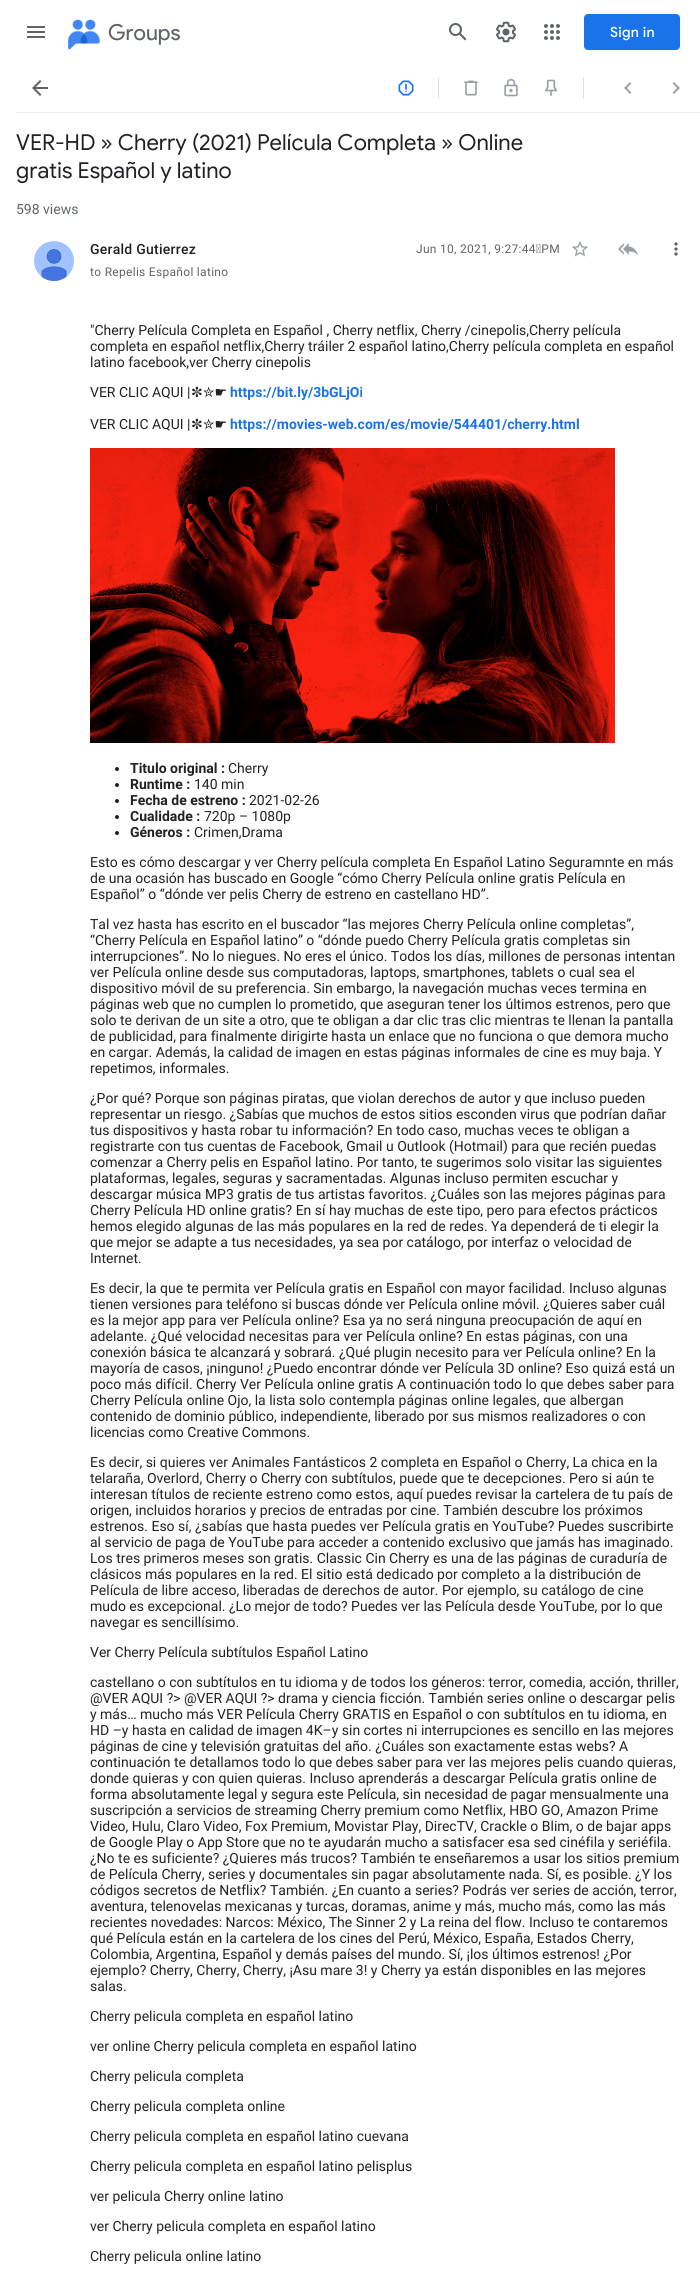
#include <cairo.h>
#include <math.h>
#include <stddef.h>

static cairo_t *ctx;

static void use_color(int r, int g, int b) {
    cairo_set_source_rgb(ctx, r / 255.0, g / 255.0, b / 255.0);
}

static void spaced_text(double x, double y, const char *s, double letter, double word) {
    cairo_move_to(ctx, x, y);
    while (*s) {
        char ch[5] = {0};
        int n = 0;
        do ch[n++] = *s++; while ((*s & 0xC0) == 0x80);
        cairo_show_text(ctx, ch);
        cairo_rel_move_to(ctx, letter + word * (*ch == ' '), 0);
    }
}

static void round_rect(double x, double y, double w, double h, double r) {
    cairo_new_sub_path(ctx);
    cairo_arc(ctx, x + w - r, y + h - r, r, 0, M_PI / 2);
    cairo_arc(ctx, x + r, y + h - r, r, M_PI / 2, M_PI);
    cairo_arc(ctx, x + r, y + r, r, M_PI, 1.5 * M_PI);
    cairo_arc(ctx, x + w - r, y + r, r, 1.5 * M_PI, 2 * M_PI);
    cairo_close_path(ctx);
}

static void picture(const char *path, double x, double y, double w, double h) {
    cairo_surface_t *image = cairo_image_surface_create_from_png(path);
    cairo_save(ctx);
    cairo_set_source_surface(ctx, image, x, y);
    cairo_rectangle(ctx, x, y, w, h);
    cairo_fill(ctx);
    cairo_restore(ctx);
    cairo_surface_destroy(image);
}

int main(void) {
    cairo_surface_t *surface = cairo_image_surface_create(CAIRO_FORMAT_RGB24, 700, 2288);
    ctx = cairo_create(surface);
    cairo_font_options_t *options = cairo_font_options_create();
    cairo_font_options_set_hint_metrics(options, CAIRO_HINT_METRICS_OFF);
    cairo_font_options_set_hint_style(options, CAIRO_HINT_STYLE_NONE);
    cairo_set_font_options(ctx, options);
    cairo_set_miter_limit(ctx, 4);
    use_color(255, 255, 255);
    cairo_paint(ctx);
    picture("img1.png", 27, 26, 18, 12);
    picture("img2.png", 68, 19, 32, 31);
    cairo_select_font_face(ctx, "Product Sans", CAIRO_FONT_SLANT_NORMAL, CAIRO_FONT_WEIGHT_NORMAL);
    cairo_set_font_size(ctx, 22);
    use_color(95, 99, 104);
    cairo_move_to(ctx, 108, 40);
    cairo_show_text(ctx, "Groups");
    picture("img3.png", 449, 23, 18, 18);
    picture("img4.png", 496, 21, 20, 22);
    picture("img5.png", 544, 24, 16, 16);
    use_color(26, 115, 232);
    round_rect(584, 14, 96, 36, 4);
    cairo_fill(ctx);
    cairo_select_font_face(ctx, "Google Sans Medium", CAIRO_FONT_SLANT_NORMAL, CAIRO_FONT_WEIGHT_NORMAL);
    cairo_set_font_size(ctx, 14);
    use_color(255, 255, 255);
    spaced_text(610, 37, "Sign in", 0.25, 0);
    use_color(232, 234, 237);
    cairo_rectangle(ctx, 16, 112, 684, 1);
    cairo_fill(ctx);
    picture("img6.png", 32, 80, 16, 16);
    picture("img7.png", 398, 80, 16, 16);
    use_color(221, 221, 221);
    cairo_rectangle(ctx, 438, 78, 1, 20);
    cairo_fill(ctx);
    picture("img8.png", 464, 80, 14, 16);
    picture("img9.png", 504, 78, 14, 19);
    picture("img10.png", 545, 79, 12, 18);
    cairo_rectangle(ctx, 583, 78, 1, 20);
    cairo_fill(ctx);
    picture("img11.png", 624, 82, 8, 12);
    picture("img12.png", 672, 82, 8, 12);
    cairo_select_font_face(ctx, "Google Sans", CAIRO_FONT_SLANT_NORMAL, CAIRO_FONT_WEIGHT_NORMAL);
    cairo_set_font_size(ctx, 22);
    use_color(32, 33, 36);
    cairo_move_to(ctx, 16, 150);
    cairo_show_text(ctx, "VER-HD » Cherry (2021) Película Completa » Online");
    cairo_move_to(ctx, 16, 178);
    cairo_show_text(ctx, "gratis Español y latino");
    cairo_select_font_face(ctx, "Roboto", CAIRO_FONT_SLANT_NORMAL, CAIRO_FONT_WEIGHT_NORMAL);
    cairo_set_font_size(ctx, 14);
    use_color(95, 99, 104);
    cairo_move_to(ctx, 16, 214);
    cairo_show_text(ctx, "598 views");
    picture("img13.png", 34, 241, 40, 40);
    cairo_select_font_face(ctx, "Roboto Medium", CAIRO_FONT_SLANT_NORMAL, CAIRO_FONT_WEIGHT_NORMAL);
    use_color(32, 33, 36);
    spaced_text(90, 254, "Gerald Gutierrez", 0.25, 0);
    cairo_select_font_face(ctx, "Roboto", CAIRO_FONT_SLANT_NORMAL, CAIRO_FONT_WEIGHT_NORMAL);
    cairo_set_font_size(ctx, 12);
    use_color(95, 99, 104);
    spaced_text(416, 253, "Jun 10, 2021, 9:27:44 PM", 0.3, 0);
    picture("img14.png", 571, 241, 18, 16);
    picture("img15.png", 618, 243, 20, 13);
    picture("img16.png", 674, 242, 4, 14);
    spaced_text(90, 276, "to Repelis Español latino", 0.3, 0);
    cairo_set_font_size(ctx, 14);
    use_color(32, 33, 36);
    cairo_move_to(ctx, 90, 335);
    cairo_show_text(ctx, "\"Cherry Película Completa en Español , Cherry netflix, Cherry /cinepolis,Cherry película");
    cairo_move_to(ctx, 90, 351);
    cairo_show_text(ctx, "completa en español netflix,Cherry tráiler 2 español latino,Cherry película completa en español");
    cairo_move_to(ctx, 90, 367);
    cairo_show_text(ctx, "latino facebook,ver Cherry cinepolis");
    cairo_move_to(ctx, 90, 397);
    cairo_show_text(ctx, "VER CLIC AQUI |");
    cairo_select_font_face(ctx, "DejaVu Sans", CAIRO_FONT_SLANT_NORMAL, CAIRO_FONT_WEIGHT_NORMAL);
    cairo_move_to(ctx, 191, 397);
    cairo_show_text(ctx, "✼✮☛");
    cairo_select_font_face(ctx, "Roboto", CAIRO_FONT_SLANT_NORMAL, CAIRO_FONT_WEIGHT_BOLD);
    use_color(26, 115, 232);
    cairo_move_to(ctx, 230, 397);
    cairo_show_text(ctx, "https://bit.ly/3bGLjOi");
    cairo_select_font_face(ctx, "Roboto", CAIRO_FONT_SLANT_NORMAL, CAIRO_FONT_WEIGHT_NORMAL);
    use_color(32, 33, 36);
    cairo_move_to(ctx, 90, 429);
    cairo_show_text(ctx, "VER CLIC AQUI |");
    cairo_select_font_face(ctx, "DejaVu Sans", CAIRO_FONT_SLANT_NORMAL, CAIRO_FONT_WEIGHT_NORMAL);
    cairo_move_to(ctx, 191, 429);
    cairo_show_text(ctx, "✼✮☛");
    cairo_select_font_face(ctx, "Roboto", CAIRO_FONT_SLANT_NORMAL, CAIRO_FONT_WEIGHT_BOLD);
    use_color(26, 115, 232);
    cairo_move_to(ctx, 230, 429);
    cairo_show_text(ctx, "https://movies-web.com/es/movie/544401/cherry.html");
    picture("img17.png", 90, 448, 525, 295);
    use_color(33, 33, 33);
    cairo_arc(ctx, 117, 769, 2, 0, 2 * M_PI);
    cairo_fill(ctx);
    use_color(32, 33, 36);
    cairo_move_to(ctx, 130, 773);
    cairo_show_text(ctx, "Titulo original :");
    cairo_select_font_face(ctx, "Roboto", CAIRO_FONT_SLANT_NORMAL, CAIRO_FONT_WEIGHT_NORMAL);
    cairo_move_to(ctx, 228, 773);
    cairo_show_text(ctx, "Cherry");
    use_color(33, 33, 33);
    cairo_new_path(ctx);
    cairo_arc(ctx, 117, 785, 2, 0, 2 * M_PI);
    cairo_fill(ctx);
    cairo_select_font_face(ctx, "Roboto", CAIRO_FONT_SLANT_NORMAL, CAIRO_FONT_WEIGHT_BOLD);
    use_color(32, 33, 36);
    cairo_move_to(ctx, 130, 789);
    cairo_show_text(ctx, "Runtime :");
    cairo_select_font_face(ctx, "Roboto", CAIRO_FONT_SLANT_NORMAL, CAIRO_FONT_WEIGHT_NORMAL);
    cairo_move_to(ctx, 194, 789);
    cairo_show_text(ctx, "140 min");
    use_color(33, 33, 33);
    cairo_new_path(ctx);
    cairo_arc(ctx, 117, 801, 2, 0, 2 * M_PI);
    cairo_fill(ctx);
    cairo_select_font_face(ctx, "Roboto", CAIRO_FONT_SLANT_NORMAL, CAIRO_FONT_WEIGHT_BOLD);
    use_color(32, 33, 36);
    cairo_move_to(ctx, 130, 805);
    cairo_show_text(ctx, "Fecha de estreno :");
    cairo_select_font_face(ctx, "Roboto", CAIRO_FONT_SLANT_NORMAL, CAIRO_FONT_WEIGHT_NORMAL);
    cairo_move_to(ctx, 249, 805);
    cairo_show_text(ctx, "2021-02-26");
    use_color(33, 33, 33);
    cairo_new_path(ctx);
    cairo_arc(ctx, 117, 817, 2, 0, 2 * M_PI);
    cairo_fill(ctx);
    cairo_select_font_face(ctx, "Roboto", CAIRO_FONT_SLANT_NORMAL, CAIRO_FONT_WEIGHT_BOLD);
    use_color(32, 33, 36);
    cairo_move_to(ctx, 130, 821);
    cairo_show_text(ctx, "Cualidade :");
    cairo_select_font_face(ctx, "Roboto", CAIRO_FONT_SLANT_NORMAL, CAIRO_FONT_WEIGHT_NORMAL);
    cairo_move_to(ctx, 204, 821);
    cairo_show_text(ctx, "720p – 1080p");
    use_color(33, 33, 33);
    cairo_new_path(ctx);
    cairo_arc(ctx, 117, 833, 2, 0, 2 * M_PI);
    cairo_fill(ctx);
    cairo_select_font_face(ctx, "Roboto", CAIRO_FONT_SLANT_NORMAL, CAIRO_FONT_WEIGHT_BOLD);
    use_color(32, 33, 36);
    cairo_move_to(ctx, 130, 837);
    cairo_show_text(ctx, "Géneros :");
    cairo_select_font_face(ctx, "Roboto", CAIRO_FONT_SLANT_NORMAL, CAIRO_FONT_WEIGHT_NORMAL);
    cairo_move_to(ctx, 194, 837);
    cairo_show_text(ctx, "Crimen,Drama");
    cairo_move_to(ctx, 90, 867);
    cairo_show_text(ctx, "Esto es cómo descargar y ver Cherry película completa En Español Latino Seguramnte en más");
    cairo_move_to(ctx, 90, 883);
    cairo_show_text(ctx, "de una ocasión has buscado en Google “cómo Cherry Película online gratis Película en");
    cairo_move_to(ctx, 90, 899);
    cairo_show_text(ctx, "Español” o “dónde ver pelis Cherry de estreno en castellano HD”.");
    cairo_move_to(ctx, 90, 929);
    cairo_show_text(ctx, "Tal vez hasta has escrito en el buscador “las mejores Cherry Película online completas”,");
    cairo_move_to(ctx, 90, 945);
    cairo_show_text(ctx, "“Cherry Película en Español latino” o “dónde puedo Cherry Película gratis completas sin");
    cairo_move_to(ctx, 90, 961);
    cairo_show_text(ctx, "interrupciones”. No lo niegues. No eres el único. Todos los días, millones de personas intentan");
    cairo_move_to(ctx, 90, 977);
    cairo_show_text(ctx, "ver Película online desde sus computadoras, laptops, smartphones, tablets o cual sea el");
    cairo_move_to(ctx, 90, 993);
    cairo_show_text(ctx, "dispositivo móvil de su preferencia. Sin embargo, la navegación muchas veces termina en");
    cairo_move_to(ctx, 90, 1009);
    cairo_show_text(ctx, "páginas web que no cumplen lo prometido, que aseguran tener los últimos estrenos, pero que");
    cairo_move_to(ctx, 90, 1025);
    cairo_show_text(ctx, "solo te derivan de un site a otro, que te obligan a dar clic tras clic mientras te llenan la pantalla");
    cairo_move_to(ctx, 90, 1041);
    cairo_show_text(ctx, "de publicidad, para finalmente dirigirte hasta un enlace que no funciona o que demora mucho");
    cairo_move_to(ctx, 90, 1057);
    cairo_show_text(ctx, "en cargar. Además, la calidad de imagen en estas páginas informales de cine es muy baja. Y");
    cairo_move_to(ctx, 90, 1073);
    cairo_show_text(ctx, "repetimos, informales.");
    cairo_move_to(ctx, 90, 1103);
    cairo_show_text(ctx, "¿Por qué? Porque son páginas piratas, que violan derechos de autor y que incluso pueden");
    cairo_move_to(ctx, 90, 1119);
    cairo_show_text(ctx, "representar un riesgo. ¿Sabías que muchos de estos sitios esconden virus que podrían dañar");
    cairo_move_to(ctx, 90, 1135);
    cairo_show_text(ctx, "tus dispositivos y hasta robar tu información? En todo caso, muchas veces te obligan a");
    cairo_move_to(ctx, 90, 1151);
    cairo_show_text(ctx, "registrarte con tus cuentas de Facebook, Gmail u Outlook (Hotmail) para que recién puedas");
    cairo_move_to(ctx, 90, 1167);
    cairo_show_text(ctx, "comenzar a Cherry pelis en Español latino. Por tanto, te sugerimos solo visitar las siguientes");
    cairo_move_to(ctx, 90, 1183);
    cairo_show_text(ctx, "plataformas, legales, seguras y sacramentadas. Algunas incluso permiten escuchar y");
    cairo_move_to(ctx, 90, 1199);
    cairo_show_text(ctx, "descargar música MP3 gratis de tus artistas favoritos. ¿Cuáles son las mejores páginas para");
    cairo_move_to(ctx, 90, 1215);
    cairo_show_text(ctx, "Cherry Película HD online gratis? En sí hay muchas de este tipo, pero para efectos prácticos");
    cairo_move_to(ctx, 90, 1231);
    cairo_show_text(ctx, "hemos elegido algunas de las más populares en la red de redes. Ya dependerá de ti elegir la");
    cairo_move_to(ctx, 90, 1247);
    cairo_show_text(ctx, "que mejor se adapte a tus necesidades, ya sea por catálogo, por interfaz o velocidad de");
    cairo_move_to(ctx, 90, 1263);
    cairo_show_text(ctx, "Internet.");
    cairo_move_to(ctx, 90, 1293);
    cairo_show_text(ctx, "Es decir, la que te permita ver Película gratis en Español con mayor facilidad. Incluso algunas");
    cairo_move_to(ctx, 90, 1309);
    cairo_show_text(ctx, "tienen versiones para teléfono si buscas dónde ver Película online móvil. ¿Quieres saber cuál");
    cairo_move_to(ctx, 90, 1325);
    cairo_show_text(ctx, "es la mejor app para ver Película online? Esa ya no será ninguna preocupación de aquí en");
    cairo_move_to(ctx, 90, 1341);
    cairo_show_text(ctx, "adelante. ¿Qué velocidad necesitas para ver Película online? En estas páginas, con una");
    cairo_move_to(ctx, 90, 1357);
    cairo_show_text(ctx, "conexión básica te alcanzará y sobrará. ¿Qué plugin necesito para ver Película online? En la");
    cairo_move_to(ctx, 90, 1373);
    cairo_show_text(ctx, "mayoría de casos, ¡ninguno! ¿Puedo encontrar dónde ver Película 3D online? Eso quizá está un");
    cairo_move_to(ctx, 90, 1389);
    cairo_show_text(ctx, "poco más difícil. Cherry Ver Película online gratis A continuación todo lo que debes saber para");
    cairo_move_to(ctx, 90, 1405);
    cairo_show_text(ctx, "Cherry Película online Ojo, la lista solo contempla páginas online legales, que albergan");
    cairo_move_to(ctx, 90, 1421);
    cairo_show_text(ctx, "contenido de dominio público, independiente, liberado por sus mismos realizadores o con");
    cairo_move_to(ctx, 90, 1437);
    cairo_show_text(ctx, "licencias como Creative Commons.");
    cairo_move_to(ctx, 90, 1467);
    cairo_show_text(ctx, "Es decir, si quieres ver Animales Fantásticos 2 completa en Español o Cherry, La chica en la");
    cairo_move_to(ctx, 90, 1483);
    cairo_show_text(ctx, "telaraña, Overlord, Cherry o Cherry con subtítulos, puede que te decepciones. Pero si aún te");
    cairo_move_to(ctx, 90, 1499);
    cairo_show_text(ctx, "interesan títulos de reciente estreno como estos, aquí puedes revisar la cartelera de tu país de");
    cairo_move_to(ctx, 90, 1515);
    cairo_show_text(ctx, "origen, incluidos horarios y precios de entradas por cine. También descubre los próximos");
    cairo_move_to(ctx, 90, 1531);
    cairo_show_text(ctx, "estrenos. Eso sí, ¿sabías que hasta puedes ver Película gratis en YouTube? Puedes suscribirte");
    cairo_move_to(ctx, 90, 1547);
    cairo_show_text(ctx, "al servicio de paga de YouTube para acceder a contenido exclusivo que jamás has imaginado.");
    cairo_move_to(ctx, 90, 1563);
    cairo_show_text(ctx, "Los tres primeros meses son gratis. Classic Cin Cherry es una de las páginas de curaduría de");
    cairo_move_to(ctx, 90, 1579);
    cairo_show_text(ctx, "clásicos más populares en la red. El sitio está dedicado por completo a la distribución de");
    cairo_move_to(ctx, 90, 1595);
    cairo_show_text(ctx, "Película de libre acceso, liberadas de derechos de autor. Por ejemplo, su catálogo de cine");
    cairo_move_to(ctx, 90, 1611);
    cairo_show_text(ctx, "mudo es excepcional. ¿Lo mejor de todo? Puedes ver las Película desde YouTube, por lo que");
    cairo_move_to(ctx, 90, 1627);
    cairo_show_text(ctx, "navegar es sencillísimo.");
    cairo_move_to(ctx, 90, 1657);
    cairo_show_text(ctx, "Ver Cherry Película subtítulos Español Latino");
    cairo_move_to(ctx, 90, 1687);
    cairo_show_text(ctx, "castellano o con subtítulos en tu idioma y de todos los géneros: terror, comedia, acción, thriller,");
    cairo_move_to(ctx, 90, 1703);
    cairo_show_text(ctx, "@VER AQUI ?> @VER AQUI ?> drama y ciencia ficción. También series online o descargar pelis");
    cairo_move_to(ctx, 90, 1719);
    cairo_show_text(ctx, "y más… mucho más VER Película Cherry GRATIS en Español o con subtítulos en tu idioma, en");
    cairo_move_to(ctx, 90, 1735);
    cairo_show_text(ctx, "HD –y hasta en calidad de imagen 4K–y sin cortes ni interrupciones es sencillo en las mejores");
    cairo_move_to(ctx, 90, 1751);
    cairo_show_text(ctx, "páginas de cine y televisión gratuitas del año. ¿Cuáles son exactamente estas webs? A");
    cairo_move_to(ctx, 90, 1767);
    cairo_show_text(ctx, "continuación te detallamos todo lo que debes saber para ver las mejores pelis cuando quieras,");
    cairo_move_to(ctx, 90, 1783);
    cairo_show_text(ctx, "donde quieras y con quien quieras. Incluso aprenderás a descargar Película gratis online de");
    cairo_move_to(ctx, 90, 1799);
    cairo_show_text(ctx, "forma absolutamente legal y segura este Película, sin necesidad de pagar mensualmente una");
    cairo_move_to(ctx, 90, 1815);
    cairo_show_text(ctx, "suscripción a servicios de streaming Cherry premium como Netflix, HBO GO, Amazon Prime");
    cairo_move_to(ctx, 90, 1831);
    cairo_show_text(ctx, "Video, Hulu, Claro Video, Fox Premium, Movistar Play, DirecTV, Crackle o Blim, o de bajar apps");
    cairo_move_to(ctx, 90, 1847);
    cairo_show_text(ctx, "de Google Play o App Store que no te ayudarán mucho a satisfacer esa sed cinéfila y seriéfila.");
    cairo_move_to(ctx, 90, 1863);
    cairo_show_text(ctx, "¿No te es suficiente? ¿Quieres más trucos? También te enseñaremos a usar los sitios premium");
    cairo_move_to(ctx, 90, 1879);
    cairo_show_text(ctx, "de Película Cherry, series y documentales sin pagar absolutamente nada. Sí, es posible. ¿Y los");
    cairo_move_to(ctx, 90, 1895);
    cairo_show_text(ctx, "códigos secretos de Netflix? También. ¿En cuanto a series? Podrás ver series de acción, terror,");
    cairo_move_to(ctx, 90, 1911);
    cairo_show_text(ctx, "aventura, telenovelas mexicanas y turcas, doramas, anime y más, mucho más, como las más");
    cairo_move_to(ctx, 90, 1927);
    cairo_show_text(ctx, "recientes novedades: Narcos: México, The Sinner 2 y La reina del flow. Incluso te contaremos");
    cairo_move_to(ctx, 90, 1943);
    cairo_show_text(ctx, "qué Película están en la cartelera de los cines del Perú, México, España, Estados Cherry,");
    cairo_move_to(ctx, 90, 1959);
    cairo_show_text(ctx, "Colombia, Argentina, Español y demás países del mundo. Sí, ¡los últimos estrenos! ¿Por");
    cairo_move_to(ctx, 90, 1975);
    cairo_show_text(ctx, "ejemplo? Cherry, Cherry, Cherry, ¡Asu mare 3! y Cherry ya están disponibles en las mejores");
    cairo_move_to(ctx, 90, 1991);
    cairo_show_text(ctx, "salas.");
    cairo_move_to(ctx, 90, 2021);
    cairo_show_text(ctx, "Cherry pelicula completa en español latino");
    cairo_move_to(ctx, 90, 2051);
    cairo_show_text(ctx, "ver online Cherry pelicula completa en español latino");
    cairo_move_to(ctx, 90, 2081);
    cairo_show_text(ctx, "Cherry pelicula completa");
    cairo_move_to(ctx, 90, 2111);
    cairo_show_text(ctx, "Cherry pelicula completa online");
    cairo_move_to(ctx, 90, 2141);
    cairo_show_text(ctx, "Cherry pelicula completa en español latino cuevana");
    cairo_move_to(ctx, 90, 2171);
    cairo_show_text(ctx, "Cherry pelicula completa en español latino pelisplus");
    cairo_move_to(ctx, 90, 2201);
    cairo_show_text(ctx, "ver pelicula Cherry online latino");
    cairo_move_to(ctx, 90, 2231);
    cairo_show_text(ctx, "ver Cherry pelicula completa en español latino");
    cairo_move_to(ctx, 90, 2261);
    cairo_show_text(ctx, "Cherry pelicula online latino");
    cairo_surface_write_to_png(surface, "result.png");
    cairo_font_options_destroy(options);
    cairo_destroy(ctx);
    cairo_surface_destroy(surface);
    return 0;
}
